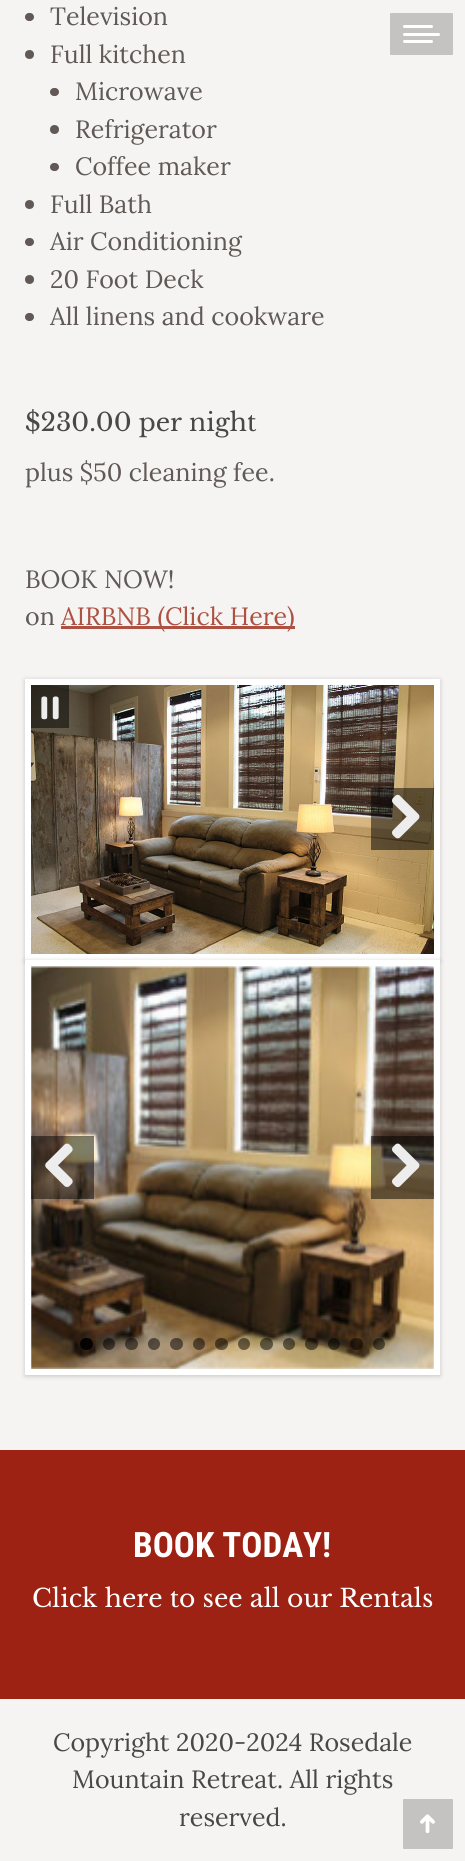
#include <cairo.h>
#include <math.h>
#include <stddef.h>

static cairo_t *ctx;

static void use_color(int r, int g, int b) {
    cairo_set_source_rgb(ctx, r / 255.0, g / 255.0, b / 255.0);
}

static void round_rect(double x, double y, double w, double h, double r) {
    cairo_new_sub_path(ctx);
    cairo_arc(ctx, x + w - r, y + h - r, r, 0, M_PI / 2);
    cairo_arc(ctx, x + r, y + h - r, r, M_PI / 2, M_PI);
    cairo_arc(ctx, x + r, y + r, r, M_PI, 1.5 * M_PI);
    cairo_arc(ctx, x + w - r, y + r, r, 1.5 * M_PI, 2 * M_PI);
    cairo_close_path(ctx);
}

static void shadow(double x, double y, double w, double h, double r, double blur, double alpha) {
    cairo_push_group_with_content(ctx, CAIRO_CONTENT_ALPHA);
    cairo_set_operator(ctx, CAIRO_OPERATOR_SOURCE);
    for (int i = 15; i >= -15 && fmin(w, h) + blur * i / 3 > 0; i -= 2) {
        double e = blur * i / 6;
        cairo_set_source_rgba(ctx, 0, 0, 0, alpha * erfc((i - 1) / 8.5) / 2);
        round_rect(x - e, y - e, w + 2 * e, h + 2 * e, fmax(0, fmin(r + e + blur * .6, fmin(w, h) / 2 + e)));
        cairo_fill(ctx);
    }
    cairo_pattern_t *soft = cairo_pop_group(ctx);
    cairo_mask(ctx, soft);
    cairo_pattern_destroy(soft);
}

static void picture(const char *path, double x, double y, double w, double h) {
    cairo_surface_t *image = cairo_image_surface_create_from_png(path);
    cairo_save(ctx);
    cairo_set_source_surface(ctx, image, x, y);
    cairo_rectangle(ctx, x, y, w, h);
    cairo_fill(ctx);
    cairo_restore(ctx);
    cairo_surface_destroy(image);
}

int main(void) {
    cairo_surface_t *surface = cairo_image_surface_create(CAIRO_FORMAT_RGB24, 465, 1861);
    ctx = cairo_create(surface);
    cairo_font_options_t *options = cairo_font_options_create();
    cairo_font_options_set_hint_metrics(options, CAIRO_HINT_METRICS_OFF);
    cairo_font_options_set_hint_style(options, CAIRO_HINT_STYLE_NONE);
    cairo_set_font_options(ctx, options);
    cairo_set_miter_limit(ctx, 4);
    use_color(245, 244, 242);
    cairo_paint(ctx);
    use_color(96, 89, 86);
    round_rect(25, 13, 9, 8, 4);
    cairo_fill(ctx);
    cairo_select_font_face(ctx, "Lora", CAIRO_FONT_SLANT_NORMAL, CAIRO_FONT_WEIGHT_NORMAL);
    cairo_set_font_size(ctx, 25);
    cairo_move_to(ctx, 50, 25);
    cairo_show_text(ctx, "Television");
    cairo_new_path(ctx);
    cairo_arc(ctx, 29.5, 54.5, 4.5, 0, 2 * M_PI);
    cairo_fill(ctx);
    cairo_move_to(ctx, 50, 63);
    cairo_show_text(ctx, "Full kitchen");
    round_rect(50, 88, 9, 8, 4);
    cairo_fill(ctx);
    cairo_move_to(ctx, 75, 100);
    cairo_show_text(ctx, "Microwave");
    cairo_new_path(ctx);
    cairo_arc(ctx, 54.5, 129.5, 4.5, 0, 2 * M_PI);
    cairo_fill(ctx);
    cairo_move_to(ctx, 75, 138);
    cairo_show_text(ctx, "Refrigerator");
    round_rect(50, 163, 9, 8, 4);
    cairo_fill(ctx);
    cairo_move_to(ctx, 75, 175);
    cairo_show_text(ctx, "Coffee maker");
    cairo_new_path(ctx);
    cairo_arc(ctx, 29.5, 204.5, 4.5, 0, 2 * M_PI);
    cairo_fill(ctx);
    cairo_move_to(ctx, 50, 213);
    cairo_show_text(ctx, "Full Bath");
    round_rect(25, 238, 9, 8, 4);
    cairo_fill(ctx);
    cairo_move_to(ctx, 50, 250);
    cairo_show_text(ctx, "Air Conditioning");
    cairo_new_path(ctx);
    cairo_arc(ctx, 29.5, 279.5, 4.5, 0, 2 * M_PI);
    cairo_fill(ctx);
    cairo_move_to(ctx, 50, 288);
    cairo_show_text(ctx, "20 Foot Deck");
    round_rect(25, 313, 9, 8, 4);
    cairo_fill(ctx);
    cairo_move_to(ctx, 50, 325);
    cairo_show_text(ctx, "All linens and cookware");
    cairo_select_font_face(ctx, "Libre Baskerville", CAIRO_FONT_SLANT_NORMAL, CAIRO_FONT_WEIGHT_NORMAL);
    use_color(73, 72, 72);
    cairo_move_to(ctx, 25, 431);
    cairo_show_text(ctx, "$230.00 per night");
    cairo_select_font_face(ctx, "Lora", CAIRO_FONT_SLANT_NORMAL, CAIRO_FONT_WEIGHT_NORMAL);
    use_color(96, 89, 86);
    cairo_move_to(ctx, 25, 481);
    cairo_show_text(ctx, "plus $50 cleaning fee.");
    cairo_move_to(ctx, 25, 588);
    cairo_show_text(ctx, "BOOK NOW!");
    cairo_move_to(ctx, 25, 625);
    cairo_show_text(ctx, "on");
    use_color(173, 81, 66);
    cairo_rectangle(ctx, 61, 626, 234, 3);
    cairo_fill(ctx);
    cairo_move_to(ctx, 61, 625);
    cairo_show_text(ctx, "AIRBNB (Click Here)");
    use_color(0, 0, 0);
    shadow(25, 680, 415, 281, 0, 2.5, 0.2);
    use_color(255, 255, 255);
    cairo_rectangle(ctx, 25, 679, 415, 281);
    cairo_fill(ctx);
    use_color(0, 0, 0);
    shadow(25, 961, 415, 415, 0, 2.5, 0.2);
    picture("img1.png", 31, 685, 403, 269);
    cairo_set_source_rgba(ctx, 0, 0, 0, 0.5);
    cairo_rectangle(ctx, 31, 685, 38, 43);
    cairo_fill(ctx);
    picture("img2.png", 41, 696, 18, 24);
    cairo_rectangle(ctx, 371, 788, 63, 62);
    cairo_fill(ctx);
    picture("img3.png", 392, 794, 28, 45);
    use_color(255, 255, 255);
    cairo_rectangle(ctx, 25, 960, 415, 415);
    cairo_fill(ctx);
    picture("img4.png", 31, 966, 403, 403);
    cairo_set_source_rgba(ctx, 0, 0, 0, 0.5);
    cairo_rectangle(ctx, 31, 1136, 63, 63);
    cairo_fill(ctx);
    picture("img5.png", 45, 1143, 28, 44);
    cairo_rectangle(ctx, 371, 1136, 63, 63);
    cairo_fill(ctx);
    picture("img6.png", 392, 1143, 28, 45);
    cairo_set_source_rgba(ctx, 0, 0, 0, 0.9);
    round_rect(80, 1338, 13, 12, 6);
    cairo_fill(ctx);
    cairo_set_source_rgba(ctx, 0, 0, 0, 0.5);
    cairo_arc(ctx, 109, 1344, 6, 0, 2 * M_PI);
    cairo_fill(ctx);
    round_rect(125, 1338, 13, 12, 6);
    cairo_fill(ctx);
    cairo_arc(ctx, 154, 1344, 6, 0, 2 * M_PI);
    cairo_fill(ctx);
    round_rect(170, 1338, 13, 12, 6);
    cairo_fill(ctx);
    cairo_arc(ctx, 199, 1344, 6, 0, 2 * M_PI);
    cairo_fill(ctx);
    round_rect(215, 1338, 13, 12, 6);
    cairo_fill(ctx);
    cairo_arc(ctx, 244, 1344, 6, 0, 2 * M_PI);
    cairo_fill(ctx);
    round_rect(260, 1338, 13, 12, 6);
    cairo_fill(ctx);
    cairo_arc(ctx, 289, 1344, 6, 0, 2 * M_PI);
    cairo_fill(ctx);
    round_rect(305, 1338, 13, 12, 6);
    cairo_fill(ctx);
    cairo_arc(ctx, 334, 1344, 6, 0, 2 * M_PI);
    cairo_fill(ctx);
    round_rect(350, 1338, 13, 12, 6);
    cairo_fill(ctx);
    cairo_arc(ctx, 379, 1344, 6, 0, 2 * M_PI);
    cairo_fill(ctx);
    use_color(196, 195, 194);
    round_rect(390, 13, 63, 42, 1);
    cairo_fill(ctx);
    use_color(255, 255, 255);
    round_rect(403, 25, 30, 3, 1.5);
    cairo_fill(ctx);
    round_rect(403, 33, 37, 3, 1.5);
    cairo_fill(ctx);
    round_rect(403, 40, 30, 3, 1.5);
    cairo_fill(ctx);
    use_color(158, 34, 19);
    cairo_rectangle(ctx, 0, 1450, 465, 249);
    cairo_fill(ctx);
    cairo_select_font_face(ctx, "Roboto Condensed", CAIRO_FONT_SLANT_NORMAL, CAIRO_FONT_WEIGHT_BOLD);
    cairo_set_font_size(ctx, 35);
    use_color(255, 255, 255);
    cairo_move_to(ctx, 133, 1557);
    cairo_show_text(ctx, "BOOK TODAY!");
    cairo_select_font_face(ctx, "Libre Baskerville", CAIRO_FONT_SLANT_NORMAL, CAIRO_FONT_WEIGHT_NORMAL);
    cairo_set_font_size(ctx, 25);
    cairo_move_to(ctx, 32, 1607);
    cairo_show_text(ctx, "Click here to see all our Rentals");
    cairo_select_font_face(ctx, "Lora", CAIRO_FONT_SLANT_NORMAL, CAIRO_FONT_WEIGHT_NORMAL);
    use_color(73, 72, 72);
    cairo_move_to(ctx, 53, 1751);
    cairo_show_text(ctx, "Copyright 2020-2024 Rosedale");
    cairo_move_to(ctx, 72, 1788);
    cairo_show_text(ctx, "Mountain Retreat. All rights");
    cairo_move_to(ctx, 179, 1826);
    cairo_show_text(ctx, "reserved.");
    use_color(196, 195, 194);
    round_rect(403, 1799, 50, 50, 1);
    cairo_fill(ctx);
    picture("img7.png", 420, 1814, 15, 20);
    cairo_surface_write_to_png(surface, "result.png");
    cairo_font_options_destroy(options);
    cairo_destroy(ctx);
    cairo_surface_destroy(surface);
    return 0;
}
